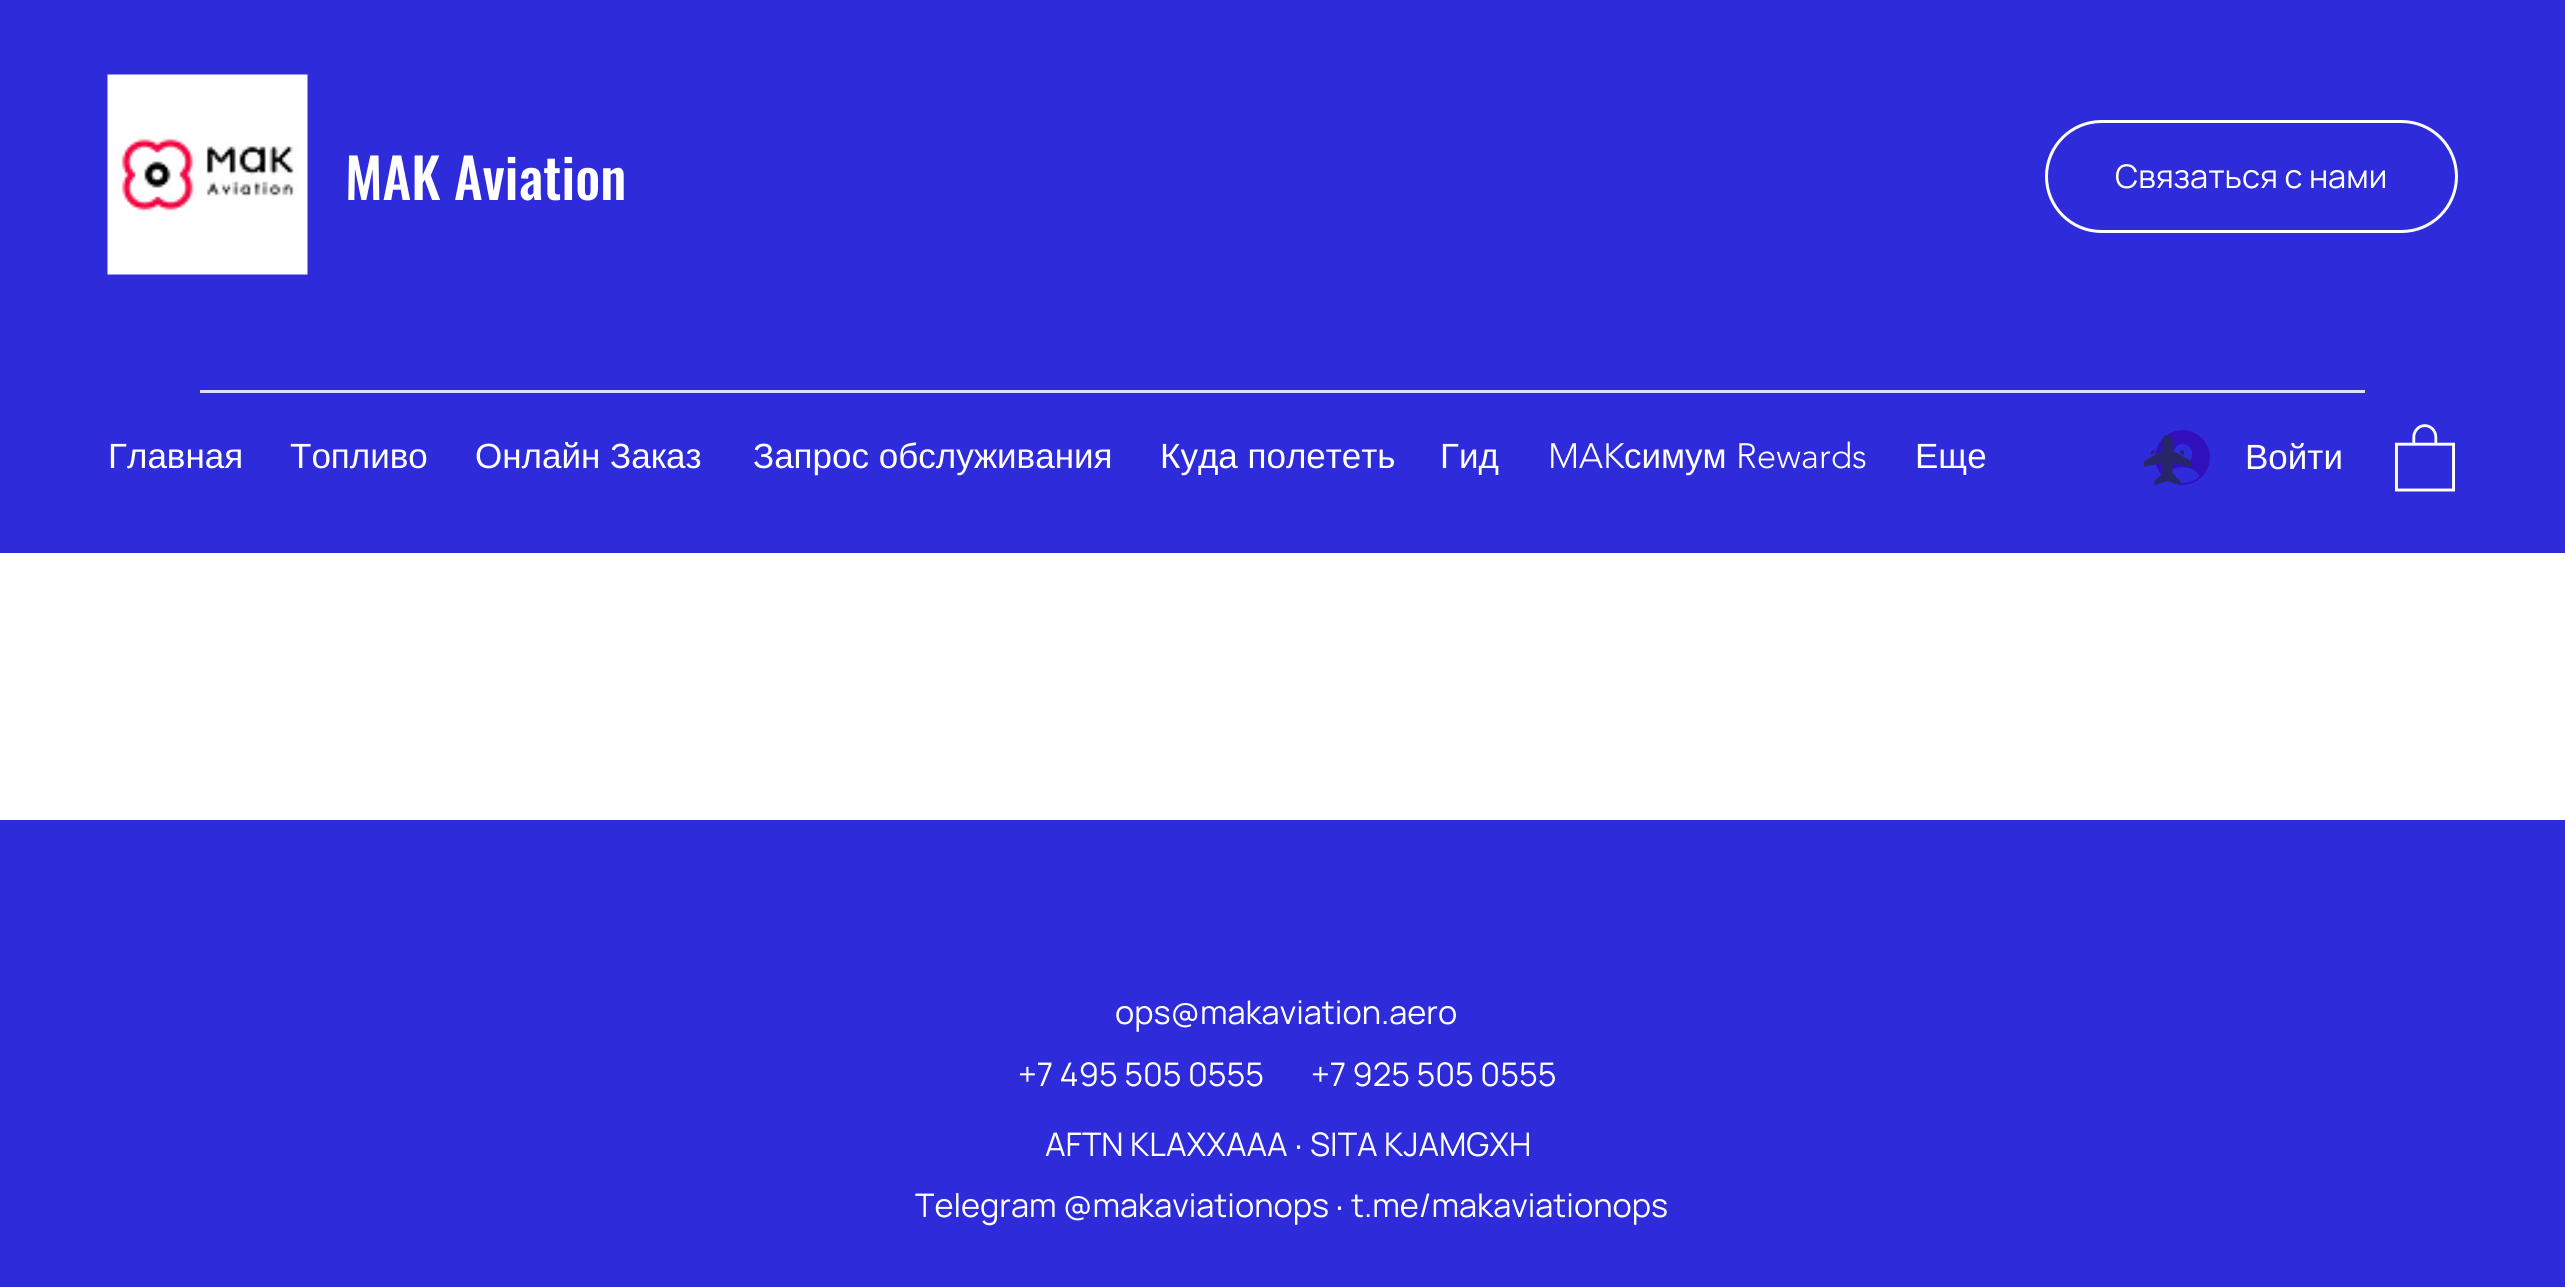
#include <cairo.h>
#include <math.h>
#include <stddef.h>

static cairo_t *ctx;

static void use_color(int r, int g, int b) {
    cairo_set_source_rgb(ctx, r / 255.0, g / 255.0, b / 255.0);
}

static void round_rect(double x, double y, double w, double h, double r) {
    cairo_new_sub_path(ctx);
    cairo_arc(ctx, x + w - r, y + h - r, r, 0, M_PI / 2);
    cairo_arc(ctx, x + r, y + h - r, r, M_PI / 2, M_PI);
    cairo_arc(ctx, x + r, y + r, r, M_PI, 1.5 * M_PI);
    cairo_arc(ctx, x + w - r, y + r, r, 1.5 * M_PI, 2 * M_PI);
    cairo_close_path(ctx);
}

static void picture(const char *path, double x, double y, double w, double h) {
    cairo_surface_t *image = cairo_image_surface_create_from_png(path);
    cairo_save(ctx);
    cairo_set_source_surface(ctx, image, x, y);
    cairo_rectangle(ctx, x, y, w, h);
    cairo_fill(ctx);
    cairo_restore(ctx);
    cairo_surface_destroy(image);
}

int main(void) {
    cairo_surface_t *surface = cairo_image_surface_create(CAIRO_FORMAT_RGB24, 2565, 1287);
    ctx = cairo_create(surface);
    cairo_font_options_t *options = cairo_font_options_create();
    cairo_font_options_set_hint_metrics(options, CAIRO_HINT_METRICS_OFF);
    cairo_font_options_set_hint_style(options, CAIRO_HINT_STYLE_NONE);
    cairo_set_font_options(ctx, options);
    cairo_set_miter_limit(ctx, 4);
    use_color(255, 255, 255);
    cairo_paint(ctx);
    use_color(46, 44, 218);
    cairo_rectangle(ctx, 0, 0, 2565, 553);
    cairo_fill(ctx);
    picture("img1.png", 107, 74, 201, 201);
    cairo_select_font_face(ctx, "Oswald Medium", CAIRO_FONT_SLANT_NORMAL, CAIRO_FONT_WEIGHT_NORMAL);
    cairo_set_font_size(ctx, 55);
    use_color(255, 255, 255);
    cairo_move_to(ctx, 345, 200);
    cairo_show_text(ctx, "MAK Aviation");
    round_rect(2046.5, 121.5, 410, 110, 55);
    cairo_set_line_width(ctx, 3);
    cairo_stroke(ctx);
    cairo_select_font_face(ctx, "Manrope", CAIRO_FONT_SLANT_NORMAL, CAIRO_FONT_WEIGHT_NORMAL);
    cairo_set_font_size(ctx, 32.5);
    cairo_move_to(ctx, 2115, 188);
    cairo_show_text(ctx, "Связаться с нами");
    use_color(224, 223, 249);
    cairo_rectangle(ctx, 200, 390, 2165, 3);
    cairo_fill(ctx);
    picture("img3.png", 2155, 430, 55, 55);
    picture("img2.png", 2143, 435, 49, 50);
    cairo_select_font_face(ctx, "Liberation Sans", CAIRO_FONT_SLANT_NORMAL, CAIRO_FONT_WEIGHT_NORMAL);
    cairo_set_font_size(ctx, 35);
    use_color(255, 255, 255);
    cairo_move_to(ctx, 108, 468);
    cairo_show_text(ctx, "Главная");
    cairo_move_to(ctx, 290, 468);
    cairo_show_text(ctx, "Топливо");
    cairo_move_to(ctx, 475, 468);
    cairo_show_text(ctx, "Онлайн Заказ");
    cairo_move_to(ctx, 753, 468);
    cairo_show_text(ctx, "Запрос обслуживания");
    cairo_move_to(ctx, 1160, 468);
    cairo_show_text(ctx, "Куда полететь");
    cairo_move_to(ctx, 1440, 468);
    cairo_show_text(ctx, "Гид");
    cairo_select_font_face(ctx, "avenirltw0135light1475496 Light", CAIRO_FONT_SLANT_NORMAL, CAIRO_FONT_WEIGHT_NORMAL);
    cairo_move_to(ctx, 1548, 468);
    cairo_show_text(ctx, "MAK");
    cairo_select_font_face(ctx, "Liberation Sans", CAIRO_FONT_SLANT_NORMAL, CAIRO_FONT_WEIGHT_NORMAL);
    cairo_move_to(ctx, 1624, 468);
    cairo_show_text(ctx, "симум");
    cairo_select_font_face(ctx, "avenirltw0135light1475496 Light", CAIRO_FONT_SLANT_NORMAL, CAIRO_FONT_WEIGHT_NORMAL);
    cairo_move_to(ctx, 1736, 468);
    cairo_show_text(ctx, "Rewards");
    cairo_select_font_face(ctx, "Liberation Sans", CAIRO_FONT_SLANT_NORMAL, CAIRO_FONT_WEIGHT_NORMAL);
    cairo_move_to(ctx, 1915, 468);
    cairo_show_text(ctx, "Еще");
    cairo_move_to(ctx, 2245, 469);
    cairo_show_text(ctx, "Войти");
    picture("img4.png", 2395, 424, 60, 68);
    use_color(46, 44, 218);
    cairo_rectangle(ctx, 0, 820, 2565, 467);
    cairo_fill(ctx);
    cairo_select_font_face(ctx, "Manrope", CAIRO_FONT_SLANT_NORMAL, CAIRO_FONT_WEIGHT_NORMAL);
    cairo_set_font_size(ctx, 32.5);
    use_color(255, 255, 255);
    cairo_move_to(ctx, 1115, 1024);
    cairo_show_text(ctx, "ops@makaviation.aero");
    cairo_move_to(ctx, 1018, 1086);
    cairo_show_text(ctx, "+7 495 505 0555");
    cairo_move_to(ctx, 1311, 1086);
    cairo_show_text(ctx, "+7 925 505 0555");
    cairo_move_to(ctx, 1045, 1156);
    cairo_show_text(ctx, "AFTN KLAXXAAA");
    cairo_select_font_face(ctx, "Liberation Sans", CAIRO_FONT_SLANT_NORMAL, CAIRO_FONT_WEIGHT_NORMAL);
    cairo_move_to(ctx, 1294, 1156);
    cairo_show_text(ctx, "∙");
    cairo_select_font_face(ctx, "Manrope", CAIRO_FONT_SLANT_NORMAL, CAIRO_FONT_WEIGHT_NORMAL);
    cairo_move_to(ctx, 1310, 1156);
    cairo_show_text(ctx, "SITA KJAMGXH");
    cairo_move_to(ctx, 915, 1217);
    cairo_show_text(ctx, "Telegram @makaviationops");
    cairo_select_font_face(ctx, "Liberation Sans", CAIRO_FONT_SLANT_NORMAL, CAIRO_FONT_WEIGHT_NORMAL);
    cairo_move_to(ctx, 1335, 1217);
    cairo_show_text(ctx, "∙");
    cairo_select_font_face(ctx, "Manrope", CAIRO_FONT_SLANT_NORMAL, CAIRO_FONT_WEIGHT_NORMAL);
    cairo_move_to(ctx, 1351, 1217);
    cairo_show_text(ctx, "t.me/makaviationops");
    cairo_surface_write_to_png(surface, "result.png");
    cairo_font_options_destroy(options);
    cairo_destroy(ctx);
    cairo_surface_destroy(surface);
    return 0;
}
